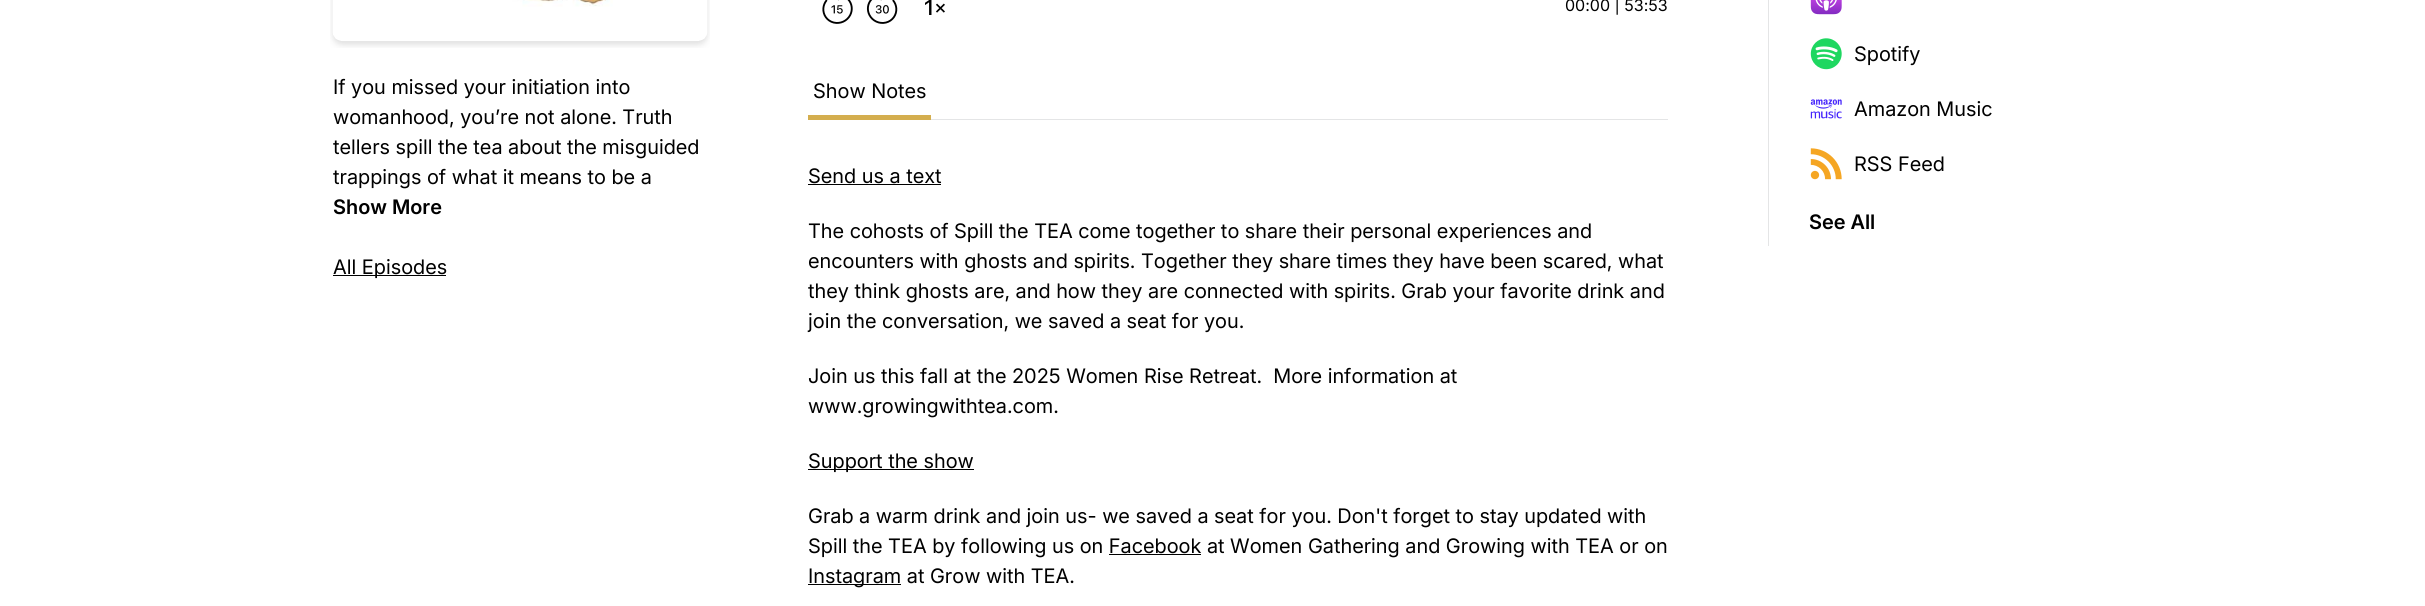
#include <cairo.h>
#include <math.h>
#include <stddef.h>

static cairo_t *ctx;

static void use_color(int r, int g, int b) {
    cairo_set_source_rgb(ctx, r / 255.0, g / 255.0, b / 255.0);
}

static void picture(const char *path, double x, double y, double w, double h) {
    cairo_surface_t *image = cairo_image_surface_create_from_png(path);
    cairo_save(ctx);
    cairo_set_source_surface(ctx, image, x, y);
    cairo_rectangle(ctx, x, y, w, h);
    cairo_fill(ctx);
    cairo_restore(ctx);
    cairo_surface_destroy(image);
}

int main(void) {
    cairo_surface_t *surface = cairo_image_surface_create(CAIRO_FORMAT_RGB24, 2425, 606);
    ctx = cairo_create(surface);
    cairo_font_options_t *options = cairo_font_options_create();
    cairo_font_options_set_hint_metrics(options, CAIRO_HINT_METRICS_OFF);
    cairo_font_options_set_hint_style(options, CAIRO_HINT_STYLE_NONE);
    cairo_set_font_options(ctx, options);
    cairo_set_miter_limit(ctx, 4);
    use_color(255, 255, 255);
    cairo_paint(ctx);
    picture("img1.png", 330, 0, 380, 48);
    cairo_select_font_face(ctx, "Inter", CAIRO_FONT_SLANT_NORMAL, CAIRO_FONT_WEIGHT_NORMAL);
    cairo_set_font_size(ctx, 20);
    use_color(0, 0, 0);
    cairo_move_to(ctx, 333, 94);
    cairo_show_text(ctx, "If you missed your initiation into");
    cairo_move_to(ctx, 333, 124);
    cairo_show_text(ctx, "womanhood, you’re not alone. Truth");
    cairo_move_to(ctx, 333, 154);
    cairo_show_text(ctx, "tellers spill the tea about the misguided");
    cairo_move_to(ctx, 333, 184);
    cairo_show_text(ctx, "trappings of what it means to be a");
    cairo_select_font_face(ctx, "Inter SemiBold", CAIRO_FONT_SLANT_NORMAL, CAIRO_FONT_WEIGHT_NORMAL);
    cairo_move_to(ctx, 333, 214);
    cairo_show_text(ctx, "Show More");
    cairo_rectangle(ctx, 333, 275, 113, 1);
    cairo_fill(ctx);
    cairo_select_font_face(ctx, "Inter", CAIRO_FONT_SLANT_NORMAL, CAIRO_FONT_WEIGHT_NORMAL);
    cairo_move_to(ctx, 333, 274);
    cairo_show_text(ctx, "All Episodes");
    picture("img2.png", 822, 0, 31, 24);
    picture("img3.png", 866, 0, 32, 24);
    picture("img4.png", 925, 0, 20, 15);
    cairo_select_font_face(ctx, "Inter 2", CAIRO_FONT_SLANT_NORMAL, CAIRO_FONT_WEIGHT_NORMAL);
    cairo_set_font_size(ctx, 16);
    cairo_move_to(ctx, 1565, 11);
    cairo_show_text(ctx, "00:00 | 53:53");
    use_color(228, 229, 230);
    cairo_rectangle(ctx, 931, 119, 737, 1);
    cairo_fill(ctx);
    use_color(212, 174, 78);
    cairo_rectangle(ctx, 808, 115, 123, 5);
    cairo_fill(ctx);
    cairo_select_font_face(ctx, "Inter", CAIRO_FONT_SLANT_NORMAL, CAIRO_FONT_WEIGHT_NORMAL);
    cairo_set_font_size(ctx, 20);
    use_color(0, 0, 0);
    cairo_move_to(ctx, 813, 98);
    cairo_show_text(ctx, "Show Notes");
    cairo_move_to(ctx, 808, 183);
    cairo_show_text(ctx, "Send us a text");
    cairo_rectangle(ctx, 808, 184, 133, 1);
    cairo_fill(ctx);
    cairo_move_to(ctx, 808, 238);
    cairo_show_text(ctx, "The cohosts of Spill the TEA come together to share their personal experiences and");
    cairo_move_to(ctx, 808, 268);
    cairo_show_text(ctx, "encounters with ghosts and spirits. Together they share times they have been scared, what");
    cairo_move_to(ctx, 808, 298);
    cairo_show_text(ctx, "they think ghosts are, and how they are connected with spirits. Grab your favorite drink and");
    cairo_move_to(ctx, 808, 328);
    cairo_show_text(ctx, "join the conversation, we saved a seat for you.");
    cairo_move_to(ctx, 808, 383);
    cairo_show_text(ctx, "Join us this fall at the 2025 Women Rise Retreat.  More information at");
    cairo_move_to(ctx, 808, 413);
    cairo_show_text(ctx, "www.growingwithtea.com.");
    cairo_rectangle(ctx, 808, 469, 166, 1);
    cairo_fill(ctx);
    cairo_move_to(ctx, 808, 468);
    cairo_show_text(ctx, "Support the show");
    cairo_move_to(ctx, 808, 523);
    cairo_show_text(ctx, "Grab a warm drink and join us- we saved a seat for you. Don't forget to stay updated with");
    cairo_move_to(ctx, 808, 553);
    cairo_show_text(ctx, "Spill the TEA by following us on Facebook at Women Gathering and Growing with TEA or on");
    cairo_rectangle(ctx, 1109, 554, 92, 1);
    cairo_fill(ctx);
    cairo_rectangle(ctx, 808, 584, 93, 1);
    cairo_fill(ctx);
    cairo_move_to(ctx, 808, 583);
    cairo_show_text(ctx, "Instagram at Grow with TEA.");
    use_color(228, 229, 230);
    cairo_rectangle(ctx, 1768, 0, 1, 246);
    cairo_fill(ctx);
    picture("img5.png", 1810, 0, 32, 15);
    picture("img6.png", 1810, 38, 32, 32);
    use_color(0, 0, 0);
    cairo_move_to(ctx, 1854, 61);
    cairo_show_text(ctx, "Spotify");
    picture("img7.png", 1810, 99, 32, 20);
    cairo_move_to(ctx, 1854, 116);
    cairo_show_text(ctx, "Amazon Music");
    picture("img8.png", 1810, 148, 32, 32);
    cairo_move_to(ctx, 1854, 171);
    cairo_show_text(ctx, "RSS Feed");
    cairo_select_font_face(ctx, "Inter SemiBold", CAIRO_FONT_SLANT_NORMAL, CAIRO_FONT_WEIGHT_NORMAL);
    cairo_move_to(ctx, 1809, 229);
    cairo_show_text(ctx, "See All");
    cairo_surface_write_to_png(surface, "result.png");
    cairo_font_options_destroy(options);
    cairo_destroy(ctx);
    cairo_surface_destroy(surface);
    return 0;
}
